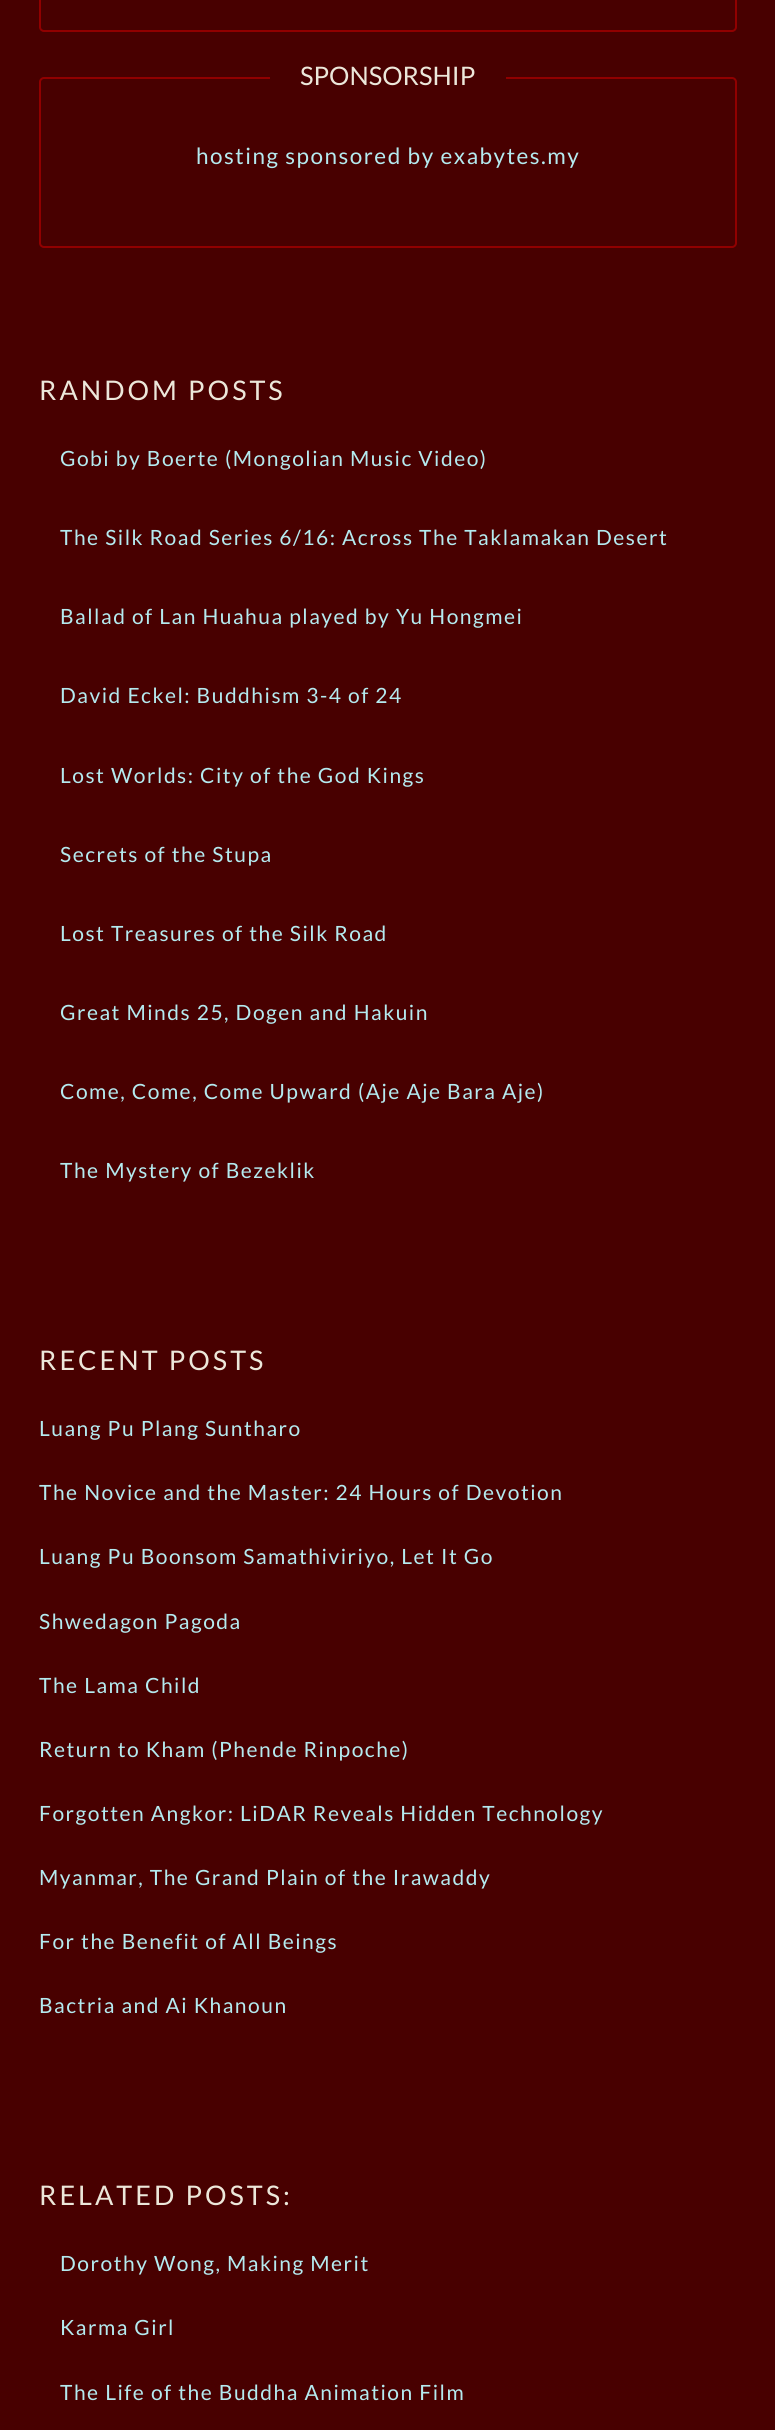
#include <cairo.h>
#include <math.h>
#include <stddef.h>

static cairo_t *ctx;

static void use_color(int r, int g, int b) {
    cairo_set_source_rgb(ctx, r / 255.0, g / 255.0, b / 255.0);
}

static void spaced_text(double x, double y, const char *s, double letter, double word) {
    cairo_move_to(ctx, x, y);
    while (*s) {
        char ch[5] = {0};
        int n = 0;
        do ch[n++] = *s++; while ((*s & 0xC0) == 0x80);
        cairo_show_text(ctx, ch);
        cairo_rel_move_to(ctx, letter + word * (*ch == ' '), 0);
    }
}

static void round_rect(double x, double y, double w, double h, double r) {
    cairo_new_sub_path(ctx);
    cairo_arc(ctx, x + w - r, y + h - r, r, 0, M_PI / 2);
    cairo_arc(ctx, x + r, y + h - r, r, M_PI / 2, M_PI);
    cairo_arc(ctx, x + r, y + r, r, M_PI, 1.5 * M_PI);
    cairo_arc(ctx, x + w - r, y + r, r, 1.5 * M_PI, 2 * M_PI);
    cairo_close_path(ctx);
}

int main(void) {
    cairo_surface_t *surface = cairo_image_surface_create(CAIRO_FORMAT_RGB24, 775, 2430);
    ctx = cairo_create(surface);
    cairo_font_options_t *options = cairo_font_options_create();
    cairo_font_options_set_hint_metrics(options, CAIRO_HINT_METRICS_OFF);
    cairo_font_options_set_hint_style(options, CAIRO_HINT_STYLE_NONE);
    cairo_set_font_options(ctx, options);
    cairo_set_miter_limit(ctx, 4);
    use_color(72, 0, 0);
    cairo_paint(ctx);
    round_rect(40, -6, 696, 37, 4);
    use_color(144, 0, 0);
    cairo_stroke(ctx);
    round_rect(40, 78, 696, 169, 4);
    cairo_stroke(ctx);
    use_color(72, 0, 0);
    cairo_rectangle(ctx, 270, 77, 236, 2);
    cairo_fill(ctx);
    cairo_select_font_face(ctx, "Lato", CAIRO_FONT_SLANT_NORMAL, CAIRO_FONT_WEIGHT_NORMAL);
    cairo_set_font_size(ctx, 25.5);
    use_color(236, 231, 218);
    cairo_move_to(ctx, 300, 85);
    cairo_show_text(ctx, "SPONSORSHIP");
    cairo_set_font_size(ctx, 22.5);
    use_color(180, 234, 239);
    spaced_text(196, 164, "hosting sponsored by exabytes.my", 1.5, 0);
    cairo_set_font_size(ctx, 27);
    use_color(236, 231, 218);
    spaced_text(39, 400, "RANDOM POSTS", 3, 0);
    cairo_set_font_size(ctx, 21);
    use_color(180, 234, 239);
    spaced_text(60, 466, "Gobi by Boerte (Mongolian Music Video)", 1.5, 0);
    spaced_text(60, 545, "The Silk Road Series 6/16: Across The Taklamakan Desert", 1.5, 0);
    spaced_text(60, 624, "Ballad of Lan Huahua played by Yu Hongmei", 1.5, 0);
    spaced_text(60, 703, "David Eckel: Buddhism 3-4 of 24", 1.5, 0);
    spaced_text(60, 783, "Lost Worlds: City of the God Kings", 1.5, 0);
    spaced_text(60, 862, "Secrets of the Stupa", 1.5, 0);
    spaced_text(60, 941, "Lost Treasures of the Silk Road", 1.5, 0);
    spaced_text(60, 1020, "Great Minds 25, Dogen and Hakuin", 1.5, 0);
    spaced_text(60, 1099, "Come, Come, Come Upward (Aje Aje Bara Aje)", 1.5, 0);
    spaced_text(60, 1178, "The Mystery of Bezeklik", 1.5, 0);
    cairo_set_font_size(ctx, 27);
    use_color(236, 231, 218);
    spaced_text(39, 1370, "RECENT POSTS", 3, 0);
    cairo_set_font_size(ctx, 21);
    use_color(180, 234, 239);
    spaced_text(39, 1436, "Luang Pu Plang Suntharo", 1.5, 0);
    spaced_text(39, 1500, "The Novice and the Master: 24 Hours of Devotion", 1.5, 0);
    spaced_text(39, 1564, "Luang Pu Boonsom Samathiviriyo, Let It Go", 1.5, 0);
    spaced_text(39, 1629, "Shwedagon Pagoda", 1.5, 0);
    spaced_text(39, 1693, "The Lama Child", 1.5, 0);
    spaced_text(39, 1757, "Return to Kham (Phende Rinpoche)", 1.5, 0);
    spaced_text(39, 1821, "Forgotten Angkor: LiDAR Reveals Hidden Technology", 1.5, 0);
    spaced_text(39, 1885, "Myanmar, The Grand Plain of the Irawaddy", 1.5, 0);
    spaced_text(39, 1949, "For the Benefit of All Beings", 1.5, 0);
    spaced_text(39, 2013, "Bactria and Ai Khanoun", 1.5, 0);
    cairo_set_font_size(ctx, 27);
    use_color(236, 231, 218);
    spaced_text(39, 2205, "RELATED POSTS:", 3, 0);
    cairo_set_font_size(ctx, 21);
    use_color(180, 234, 239);
    spaced_text(60, 2271, "Dorothy Wong, Making Merit", 1.5, 0);
    spaced_text(60, 2335, "Karma Girl", 1.5, 0);
    spaced_text(60, 2400, "The Life of the Buddha Animation Film", 1.5, 0);
    cairo_surface_write_to_png(surface, "result.png");
    cairo_font_options_destroy(options);
    cairo_destroy(ctx);
    cairo_surface_destroy(surface);
    return 0;
}
